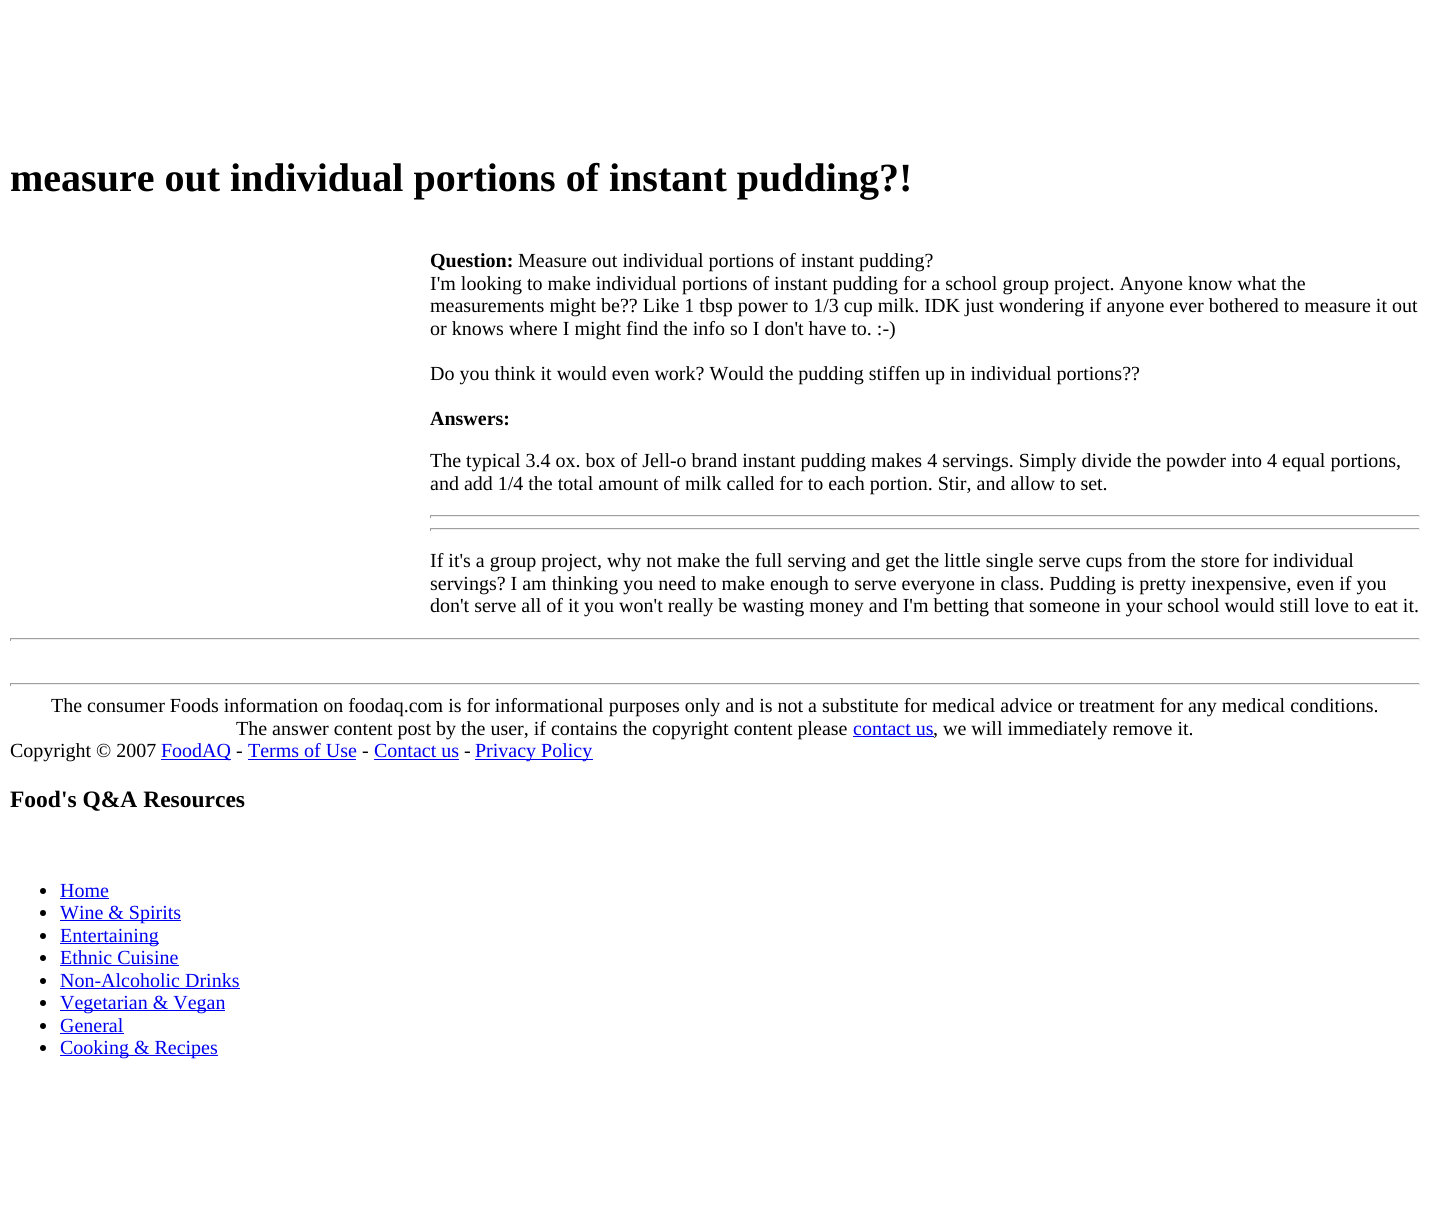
#include <cairo.h>
#include <math.h>
#include <stddef.h>

static cairo_t *ctx;

static void use_color(int r, int g, int b) {
    cairo_set_source_rgb(ctx, r / 255.0, g / 255.0, b / 255.0);
}

int main(void) {
    cairo_surface_t *surface = cairo_image_surface_create(CAIRO_FORMAT_RGB24, 1430, 1214);
    ctx = cairo_create(surface);
    cairo_font_options_t *options = cairo_font_options_create();
    cairo_font_options_set_hint_metrics(options, CAIRO_HINT_METRICS_OFF);
    cairo_font_options_set_hint_style(options, CAIRO_HINT_STYLE_NONE);
    cairo_set_font_options(ctx, options);
    cairo_set_miter_limit(ctx, 4);
    use_color(255, 255, 255);
    cairo_paint(ctx);
    cairo_select_font_face(ctx, "Liberation Serif", CAIRO_FONT_SLANT_NORMAL, CAIRO_FONT_WEIGHT_BOLD);
    cairo_set_font_size(ctx, 40);
    use_color(0, 0, 0);
    cairo_move_to(ctx, 10, 191);
    cairo_show_text(ctx, "measure out individual portions of instant pudding?!");
    cairo_set_font_size(ctx, 20);
    cairo_move_to(ctx, 430, 267);
    cairo_show_text(ctx, "Question:");
    cairo_select_font_face(ctx, "Liberation Serif", CAIRO_FONT_SLANT_NORMAL, CAIRO_FONT_WEIGHT_NORMAL);
    cairo_move_to(ctx, 518, 267);
    cairo_show_text(ctx, "Measure out individual portions of instant pudding?");
    cairo_move_to(ctx, 430, 290);
    cairo_show_text(ctx, "I'm looking to make individual portions of instant pudding for a school group project. Anyone know what the");
    cairo_move_to(ctx, 430, 312);
    cairo_show_text(ctx, "measurements might be?\077 Like 1 tbsp power to 1/3 cup milk. IDK just wondering if anyone ever bothered to measure it out");
    cairo_move_to(ctx, 430, 335);
    cairo_show_text(ctx, "or knows where I might find the info so I don't have to. :-)");
    cairo_move_to(ctx, 430, 380);
    cairo_show_text(ctx, "Do you think it would even work? Would the pudding stiffen up in individual portions?\077");
    cairo_select_font_face(ctx, "Liberation Serif", CAIRO_FONT_SLANT_NORMAL, CAIRO_FONT_WEIGHT_BOLD);
    cairo_move_to(ctx, 430, 425);
    cairo_show_text(ctx, "Answers:");
    cairo_select_font_face(ctx, "Liberation Serif", CAIRO_FONT_SLANT_NORMAL, CAIRO_FONT_WEIGHT_NORMAL);
    cairo_move_to(ctx, 430, 467);
    cairo_show_text(ctx, "The typical 3.4 ox. box of Jell-o brand instant pudding makes 4 servings. Simply divide the powder into 4 equal portions,");
    cairo_move_to(ctx, 430, 490);
    cairo_show_text(ctx, "and add 1/4 the total amount of milk called for to each portion. Stir, and allow to set.");
    use_color(159, 159, 159);
    cairo_rectangle(ctx, 430, 515, 990, 1);
    cairo_fill(ctx);
    use_color(238, 238, 238);
    cairo_rectangle(ctx, 1419, 515, 1, 3);
    cairo_fill(ctx);
    cairo_rectangle(ctx, 430, 516, 990, 1);
    cairo_fill(ctx);
    use_color(159, 159, 159);
    cairo_rectangle(ctx, 430, 515, 1, 3);
    cairo_fill(ctx);
    cairo_rectangle(ctx, 430, 528, 990, 1);
    cairo_fill(ctx);
    use_color(238, 238, 238);
    cairo_rectangle(ctx, 1419, 528, 1, 3);
    cairo_fill(ctx);
    cairo_rectangle(ctx, 430, 529, 990, 1);
    cairo_fill(ctx);
    use_color(159, 159, 159);
    cairo_rectangle(ctx, 430, 528, 1, 3);
    cairo_fill(ctx);
    use_color(0, 0, 0);
    cairo_move_to(ctx, 430, 567);
    cairo_show_text(ctx, "If it's a group project, why not make the full serving and get the little single serve cups from the store for individual");
    cairo_move_to(ctx, 430, 590);
    cairo_show_text(ctx, "servings? I am thinking you need to make enough to serve everyone in class. Pudding is pretty inexpensive, even if you");
    cairo_move_to(ctx, 430, 612);
    cairo_show_text(ctx, "don't serve all of it you won't really be wasting money and I'm betting that someone in your school would still love to eat it.");
    use_color(159, 159, 159);
    cairo_rectangle(ctx, 10, 638, 1410, 1);
    cairo_fill(ctx);
    use_color(238, 238, 238);
    cairo_rectangle(ctx, 1419, 638, 1, 3);
    cairo_fill(ctx);
    cairo_rectangle(ctx, 10, 639, 1410, 1);
    cairo_fill(ctx);
    use_color(159, 159, 159);
    cairo_rectangle(ctx, 10, 638, 1, 3);
    cairo_fill(ctx);
    cairo_rectangle(ctx, 10, 683, 1410, 1);
    cairo_fill(ctx);
    use_color(238, 238, 238);
    cairo_rectangle(ctx, 1419, 683, 1, 3);
    cairo_fill(ctx);
    cairo_rectangle(ctx, 10, 684, 1410, 1);
    cairo_fill(ctx);
    use_color(159, 159, 159);
    cairo_rectangle(ctx, 10, 683, 1, 3);
    cairo_fill(ctx);
    use_color(0, 0, 0);
    cairo_move_to(ctx, 51, 712);
    cairo_show_text(ctx, "The consumer Foods information on foodaq.com is for informational purposes only and is not a substitute for medical advice or treatment for any medical conditions.");
    cairo_move_to(ctx, 236, 735);
    cairo_show_text(ctx, "The answer content post by the user, if contains the copyright content please");
    use_color(0, 0, 238);
    cairo_move_to(ctx, 853, 735);
    cairo_show_text(ctx, "contact us");
    cairo_rectangle(ctx, 853, 736, 81, 1);
    cairo_fill(ctx);
    use_color(0, 0, 0);
    cairo_move_to(ctx, 933, 735);
    cairo_show_text(ctx, ", we will immediately remove it.");
    cairo_move_to(ctx, 10, 757);
    cairo_show_text(ctx, "Copyright © 2007");
    use_color(0, 0, 238);
    cairo_rectangle(ctx, 161, 759, 70, 1);
    cairo_fill(ctx);
    cairo_move_to(ctx, 161, 757);
    cairo_show_text(ctx, "FoodAQ");
    use_color(0, 0, 0);
    cairo_move_to(ctx, 236, 757);
    cairo_show_text(ctx, "-");
    use_color(0, 0, 238);
    cairo_move_to(ctx, 248, 757);
    cairo_show_text(ctx, "Terms of Use");
    cairo_rectangle(ctx, 248, 759, 108, 1);
    cairo_fill(ctx);
    use_color(0, 0, 0);
    cairo_move_to(ctx, 362, 757);
    cairo_show_text(ctx, "-");
    use_color(0, 0, 238);
    cairo_move_to(ctx, 374, 757);
    cairo_show_text(ctx, "Contact us");
    cairo_rectangle(ctx, 374, 759, 85, 1);
    cairo_fill(ctx);
    use_color(0, 0, 0);
    cairo_move_to(ctx, 464, 757);
    cairo_show_text(ctx, "-");
    use_color(0, 0, 238);
    cairo_rectangle(ctx, 475, 759, 118, 1);
    cairo_fill(ctx);
    cairo_move_to(ctx, 475, 757);
    cairo_show_text(ctx, "Privacy Policy");
    cairo_select_font_face(ctx, "Liberation Serif", CAIRO_FONT_SLANT_NORMAL, CAIRO_FONT_WEIGHT_BOLD);
    cairo_set_font_size(ctx, 23.5);
    use_color(0, 0, 0);
    cairo_move_to(ctx, 10, 807);
    cairo_show_text(ctx, "Food's Q&A Resources");
    cairo_new_path(ctx);
    cairo_arc(ctx, 43, 891, 3, 0, 2 * M_PI);
    cairo_fill(ctx);
    cairo_select_font_face(ctx, "Liberation Serif", CAIRO_FONT_SLANT_NORMAL, CAIRO_FONT_WEIGHT_NORMAL);
    cairo_set_font_size(ctx, 20);
    use_color(0, 0, 238);
    cairo_move_to(ctx, 60, 897);
    cairo_show_text(ctx, "Home");
    cairo_rectangle(ctx, 60, 898, 49, 1);
    cairo_fill(ctx);
    use_color(0, 0, 0);
    cairo_arc(ctx, 43, 913, 3, 0, 2 * M_PI);
    cairo_fill(ctx);
    use_color(0, 0, 238);
    cairo_rectangle(ctx, 60, 920, 121, 1);
    cairo_fill(ctx);
    cairo_move_to(ctx, 60, 919);
    cairo_show_text(ctx, "Wine & Spirits");
    use_color(0, 0, 0);
    cairo_new_path(ctx);
    cairo_arc(ctx, 43, 936, 3, 0, 2 * M_PI);
    cairo_fill(ctx);
    use_color(0, 0, 238);
    cairo_rectangle(ctx, 60, 943, 99, 1);
    cairo_fill(ctx);
    cairo_move_to(ctx, 60, 942);
    cairo_show_text(ctx, "Entertaining");
    use_color(0, 0, 0);
    cairo_new_path(ctx);
    cairo_arc(ctx, 43, 958, 3, 0, 2 * M_PI);
    cairo_fill(ctx);
    use_color(0, 0, 238);
    cairo_move_to(ctx, 60, 964);
    cairo_show_text(ctx, "Ethnic Cuisine");
    cairo_rectangle(ctx, 60, 965, 119, 1);
    cairo_fill(ctx);
    use_color(0, 0, 0);
    cairo_arc(ctx, 43, 981, 3, 0, 2 * M_PI);
    cairo_fill(ctx);
    use_color(0, 0, 238);
    cairo_move_to(ctx, 60, 987);
    cairo_show_text(ctx, "Non-Alcoholic Drinks");
    cairo_rectangle(ctx, 60, 988, 180, 1);
    cairo_fill(ctx);
    use_color(0, 0, 0);
    cairo_arc(ctx, 43, 1003, 3, 0, 2 * M_PI);
    cairo_fill(ctx);
    use_color(0, 0, 238);
    cairo_rectangle(ctx, 60, 1010, 165, 1);
    cairo_fill(ctx);
    cairo_move_to(ctx, 60, 1009);
    cairo_show_text(ctx, "Vegetarian & Vegan");
    use_color(0, 0, 0);
    cairo_new_path(ctx);
    cairo_arc(ctx, 43, 1026, 3, 0, 2 * M_PI);
    cairo_fill(ctx);
    use_color(0, 0, 238);
    cairo_move_to(ctx, 60, 1032);
    cairo_show_text(ctx, "General");
    cairo_rectangle(ctx, 60, 1033, 64, 1);
    cairo_fill(ctx);
    use_color(0, 0, 0);
    cairo_arc(ctx, 43, 1048, 3, 0, 2 * M_PI);
    cairo_fill(ctx);
    use_color(0, 0, 238);
    cairo_rectangle(ctx, 60, 1055, 158, 1);
    cairo_fill(ctx);
    cairo_move_to(ctx, 60, 1054);
    cairo_show_text(ctx, "Cooking & Recipes");
    cairo_surface_write_to_png(surface, "result.png");
    cairo_font_options_destroy(options);
    cairo_destroy(ctx);
    cairo_surface_destroy(surface);
    return 0;
}
